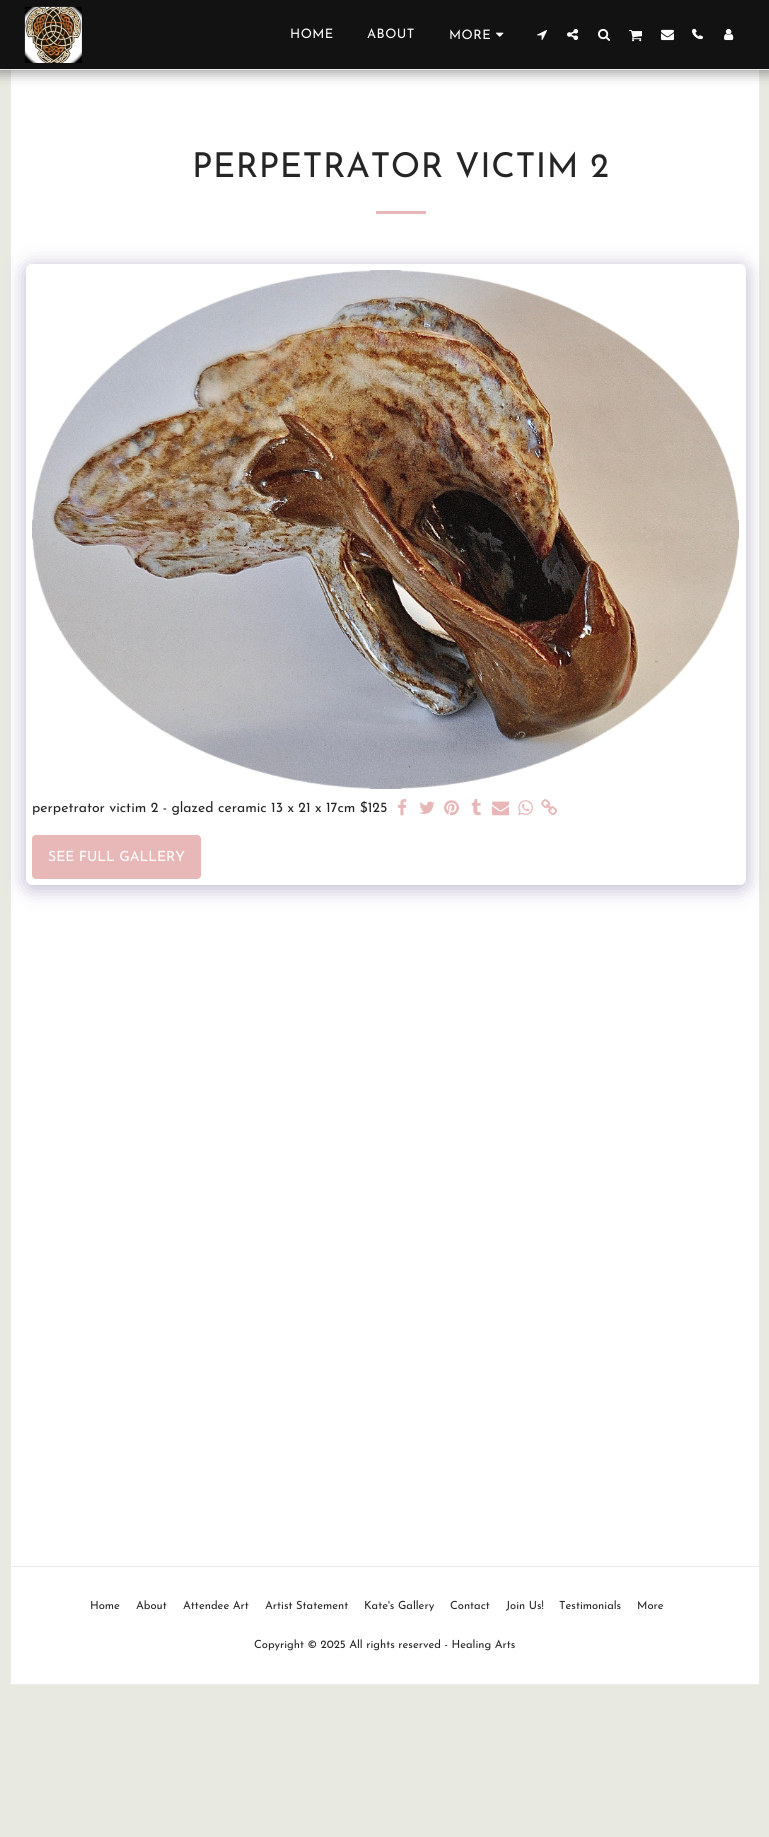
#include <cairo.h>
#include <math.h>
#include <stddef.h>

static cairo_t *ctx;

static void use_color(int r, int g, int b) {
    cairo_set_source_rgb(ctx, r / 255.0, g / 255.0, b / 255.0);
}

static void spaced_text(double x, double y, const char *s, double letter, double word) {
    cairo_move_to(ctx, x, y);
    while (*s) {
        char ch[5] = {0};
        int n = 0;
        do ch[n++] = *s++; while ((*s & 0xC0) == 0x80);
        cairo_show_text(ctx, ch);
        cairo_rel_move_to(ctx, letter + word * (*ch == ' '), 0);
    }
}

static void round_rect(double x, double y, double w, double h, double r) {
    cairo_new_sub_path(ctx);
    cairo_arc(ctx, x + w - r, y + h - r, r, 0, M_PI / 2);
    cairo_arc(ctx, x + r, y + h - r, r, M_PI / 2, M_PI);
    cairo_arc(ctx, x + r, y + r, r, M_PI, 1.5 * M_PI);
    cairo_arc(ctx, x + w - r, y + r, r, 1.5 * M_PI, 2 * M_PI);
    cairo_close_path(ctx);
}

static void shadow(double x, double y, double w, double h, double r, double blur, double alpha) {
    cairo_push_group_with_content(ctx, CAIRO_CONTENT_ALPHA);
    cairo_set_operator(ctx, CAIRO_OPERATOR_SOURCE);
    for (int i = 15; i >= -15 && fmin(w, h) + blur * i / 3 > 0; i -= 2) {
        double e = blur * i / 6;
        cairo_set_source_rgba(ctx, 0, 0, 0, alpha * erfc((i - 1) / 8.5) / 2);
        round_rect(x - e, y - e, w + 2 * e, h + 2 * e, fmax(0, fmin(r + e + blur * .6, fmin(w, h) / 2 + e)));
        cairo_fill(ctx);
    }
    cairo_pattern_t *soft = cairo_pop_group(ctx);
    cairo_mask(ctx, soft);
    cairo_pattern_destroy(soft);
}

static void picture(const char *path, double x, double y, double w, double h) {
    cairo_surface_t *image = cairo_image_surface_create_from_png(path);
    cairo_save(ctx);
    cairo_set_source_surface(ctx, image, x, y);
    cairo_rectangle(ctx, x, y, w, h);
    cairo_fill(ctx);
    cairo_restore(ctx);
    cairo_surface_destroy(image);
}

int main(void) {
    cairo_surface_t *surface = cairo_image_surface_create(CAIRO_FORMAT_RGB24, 769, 1837);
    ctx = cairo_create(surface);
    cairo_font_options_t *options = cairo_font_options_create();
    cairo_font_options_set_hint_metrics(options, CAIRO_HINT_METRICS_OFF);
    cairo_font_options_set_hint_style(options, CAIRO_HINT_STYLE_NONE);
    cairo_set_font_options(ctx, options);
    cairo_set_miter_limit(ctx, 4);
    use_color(232, 234, 226);
    cairo_paint(ctx);
    cairo_rectangle(ctx, 10.5, 5.5, 749, 1679);
    use_color(235, 235, 235);
    cairo_set_line_width(ctx, 1);
    cairo_stroke(ctx);
    use_color(255, 255, 255);
    cairo_rectangle(ctx, 11, 70, 748, 1496);
    cairo_fill(ctx);
    use_color(0, 0, 0);
    shadow(-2, 0, 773, 74, 0, 6, 0.35);
    use_color(18, 18, 18);
    cairo_rectangle(ctx, 0, 0, 769, 69);
    cairo_fill(ctx);
    use_color(235, 235, 235);
    cairo_rectangle(ctx, 0, 69, 769, 1);
    cairo_fill(ctx);
    picture("img1.png", 24, 6, 58, 57);
    cairo_select_font_face(ctx, "Josefin Sans", CAIRO_FONT_SLANT_NORMAL, CAIRO_FONT_WEIGHT_NORMAL);
    cairo_set_font_size(ctx, 13);
    use_color(255, 255, 255);
    spaced_text(290, 38, "HOME", 0.5, 0);
    spaced_text(367, 38, "ABOUT", 0.5, 0);
    spaced_text(449, 39, "MORE", 0.5, 0);
    picture("img2.png", 496, 32, 8, 5);
    picture("img3.png", 537, 29, 10, 11);
    picture("img4.png", 567, 28, 11, 13);
    picture("img5.png", 598, 28, 12, 13);
    picture("img6.png", 629, 30, 13, 12);
    picture("img7.png", 661, 29, 13, 12);
    picture("img8.png", 693, 29, 10, 11);
    picture("img9.png", 692, 28, 11, 11);
    picture("img10.png", 724, 29, 10, 12);
    cairo_set_font_size(ctx, 34.25);
    use_color(37, 37, 37);
    spaced_text(192, 177, "PERPETRATOR VICTIM 2", 0.5, 0);
    use_color(232, 184, 184);
    cairo_rectangle(ctx, 376, 211, 50, 3);
    cairo_fill(ctx);
    use_color(77, 63, 122);
    shadow(26, 267, 720, 621, 6, 10, 0.4);
    use_color(255, 255, 255);
    round_rect(26, 264, 720, 621, 6);
    cairo_fill(ctx);
    picture("img11.png", 32, 270, 707, 519);
    cairo_set_font_size(ctx, 14);
    use_color(37, 37, 37);
    cairo_move_to(ctx, 32, 812);
    cairo_show_text(ctx, "perpetrator victim 2 - glazed ceramic 13 x 21 x 17cm $125");
    picture("img12.png", 397, 799, 10, 17);
    picture("img13.png", 419, 801, 16, 13);
    picture("img14.png", 444, 800, 15, 16);
    picture("img15.png", 471, 799, 10, 17);
    picture("img16.png", 492, 801, 17, 15);
    picture("img17.png", 518, 800, 15, 16);
    picture("img18.png", 541, 799, 16, 16);
    use_color(232, 184, 184);
    round_rect(32.5, 835.5, 168, 43, 3.5);
    cairo_fill_preserve(ctx);
    cairo_stroke(ctx);
    use_color(255, 255, 255);
    cairo_move_to(ctx, 48, 861);
    cairo_show_text(ctx, "SEE FULL GALLERY");
    use_color(235, 235, 235);
    cairo_rectangle(ctx, 11, 1566, 748, 1);
    cairo_fill(ctx);
    use_color(255, 255, 255);
    cairo_rectangle(ctx, 11, 1567, 748, 117);
    cairo_fill(ctx);
    cairo_set_font_size(ctx, 11.2);
    use_color(37, 37, 37);
    cairo_move_to(ctx, 90, 1609);
    cairo_show_text(ctx, "Home");
    cairo_move_to(ctx, 136, 1609);
    cairo_show_text(ctx, "About");
    cairo_move_to(ctx, 183, 1609);
    cairo_show_text(ctx, "Attendee Art");
    cairo_move_to(ctx, 265, 1609);
    cairo_show_text(ctx, "Artist Statement");
    cairo_move_to(ctx, 364, 1609);
    cairo_show_text(ctx, "Kate's Gallery");
    cairo_move_to(ctx, 450, 1609);
    cairo_show_text(ctx, "Contact");
    cairo_move_to(ctx, 506, 1609);
    cairo_show_text(ctx, "Join Us!");
    cairo_move_to(ctx, 559, 1609);
    cairo_show_text(ctx, "Testimonials");
    cairo_move_to(ctx, 637, 1609);
    cairo_show_text(ctx, "More");
    cairo_move_to(ctx, 254, 1648);
    cairo_show_text(ctx, "Copyright © 2025 All rights reserved - Healing Arts");
    cairo_surface_write_to_png(surface, "result.png");
    cairo_font_options_destroy(options);
    cairo_destroy(ctx);
    cairo_surface_destroy(surface);
    return 0;
}
